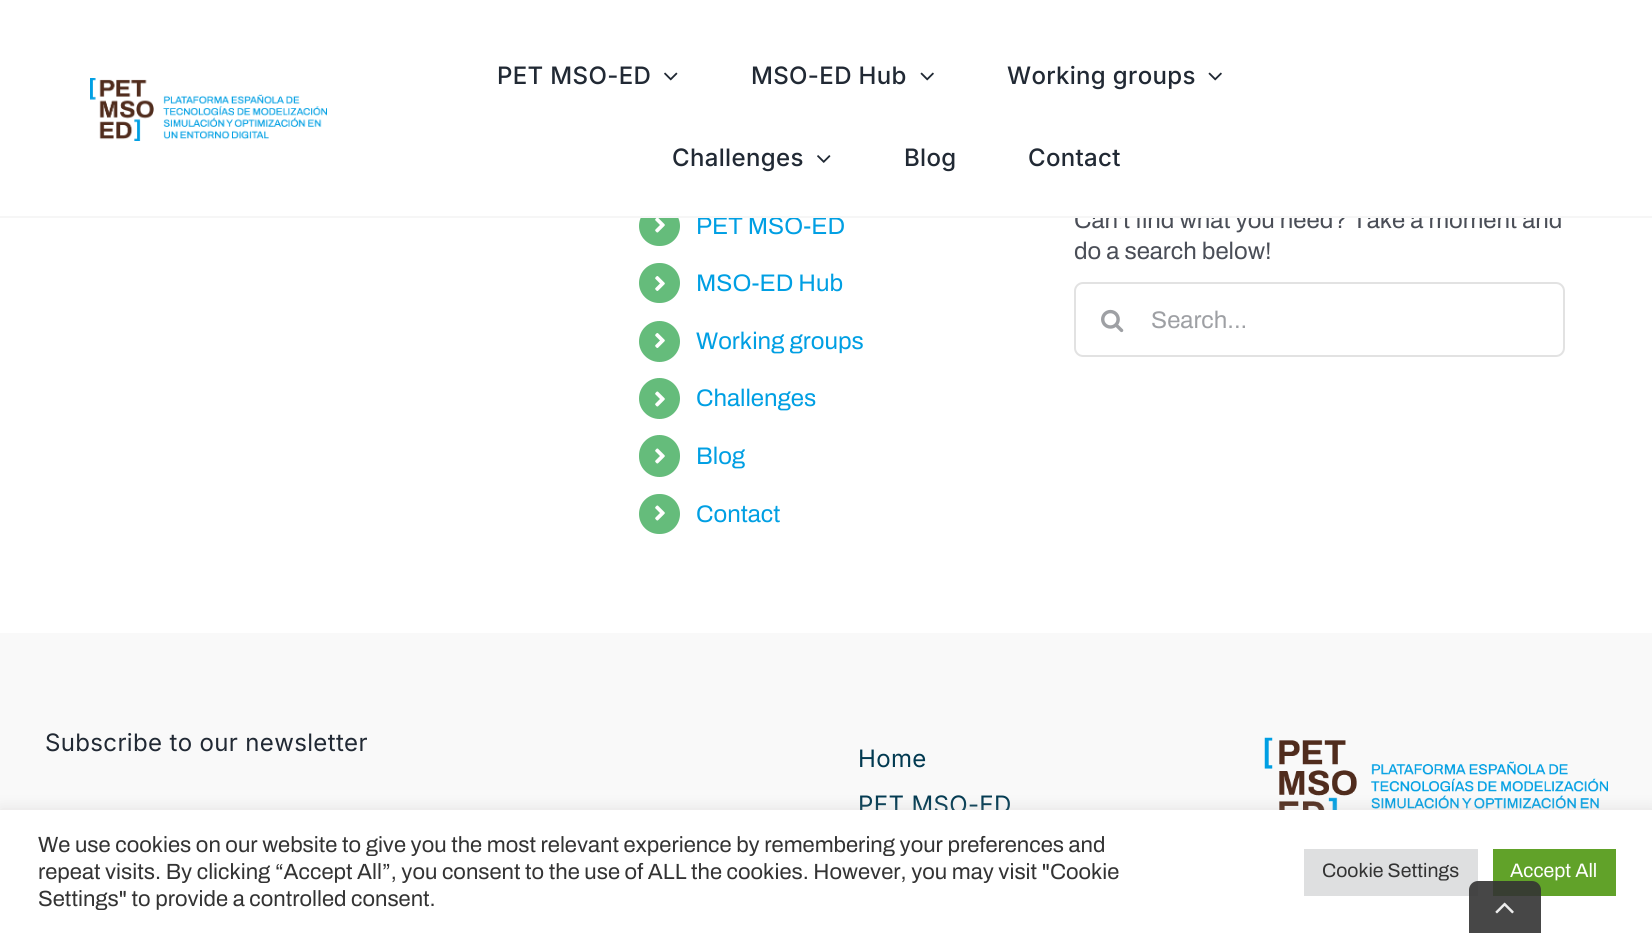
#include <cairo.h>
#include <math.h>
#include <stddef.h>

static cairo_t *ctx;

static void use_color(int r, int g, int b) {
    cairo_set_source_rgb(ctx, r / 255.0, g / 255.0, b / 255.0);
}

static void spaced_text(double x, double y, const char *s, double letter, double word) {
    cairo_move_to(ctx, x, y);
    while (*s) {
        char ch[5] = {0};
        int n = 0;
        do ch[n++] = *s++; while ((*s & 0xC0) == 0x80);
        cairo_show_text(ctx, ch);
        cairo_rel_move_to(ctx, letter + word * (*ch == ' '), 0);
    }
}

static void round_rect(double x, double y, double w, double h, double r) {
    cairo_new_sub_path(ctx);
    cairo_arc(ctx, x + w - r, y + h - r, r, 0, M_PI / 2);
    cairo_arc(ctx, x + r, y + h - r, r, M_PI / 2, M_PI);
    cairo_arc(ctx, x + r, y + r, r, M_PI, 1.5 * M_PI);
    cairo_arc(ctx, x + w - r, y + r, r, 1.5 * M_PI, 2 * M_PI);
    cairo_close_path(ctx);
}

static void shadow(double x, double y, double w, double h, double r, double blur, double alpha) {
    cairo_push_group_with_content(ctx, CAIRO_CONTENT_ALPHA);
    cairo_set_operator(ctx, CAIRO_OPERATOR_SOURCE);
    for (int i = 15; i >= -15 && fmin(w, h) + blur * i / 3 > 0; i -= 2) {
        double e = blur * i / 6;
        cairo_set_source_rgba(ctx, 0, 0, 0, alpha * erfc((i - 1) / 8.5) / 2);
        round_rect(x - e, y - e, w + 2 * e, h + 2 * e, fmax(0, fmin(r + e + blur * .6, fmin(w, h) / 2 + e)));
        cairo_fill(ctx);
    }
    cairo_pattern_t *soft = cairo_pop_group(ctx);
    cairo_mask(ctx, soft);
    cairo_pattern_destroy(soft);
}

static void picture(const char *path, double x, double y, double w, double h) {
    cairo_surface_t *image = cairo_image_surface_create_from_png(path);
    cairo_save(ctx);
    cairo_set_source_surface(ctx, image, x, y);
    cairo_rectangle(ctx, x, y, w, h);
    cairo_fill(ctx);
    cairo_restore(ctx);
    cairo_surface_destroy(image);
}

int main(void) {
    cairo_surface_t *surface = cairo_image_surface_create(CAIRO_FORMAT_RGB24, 1652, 933);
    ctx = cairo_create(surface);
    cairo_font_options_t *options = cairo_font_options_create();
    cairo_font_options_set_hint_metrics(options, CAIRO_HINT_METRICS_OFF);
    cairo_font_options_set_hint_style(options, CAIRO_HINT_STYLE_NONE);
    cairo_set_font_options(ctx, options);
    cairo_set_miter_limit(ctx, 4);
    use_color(255, 255, 255);
    cairo_paint(ctx);
    use_color(101, 188, 123);
    round_rect(639, 206, 41, 40, 20);
    cairo_fill(ctx);
    cairo_select_font_face(ctx, "Archivo", CAIRO_FONT_SLANT_NORMAL, CAIRO_FONT_WEIGHT_NORMAL);
    cairo_set_font_size(ctx, 24);
    use_color(74, 78, 87);
    cairo_move_to(ctx, 1074, 228);
    cairo_show_text(ctx, "Can't find what you need? Take a moment and");
    use_color(255, 255, 255);
    cairo_rectangle(ctx, 641, 206, 920, 10);
    cairo_fill(ctx);
    use_color(0, 159, 227);
    cairo_move_to(ctx, 696, 234);
    cairo_show_text(ctx, "PET MSO-ED");
    use_color(246, 246, 246);
    cairo_rectangle(ctx, 0, 216, 1652, 2);
    cairo_fill(ctx);
    picture("img1.png", 90, 78, 237, 63);
    cairo_select_font_face(ctx, "Inter Medium", CAIRO_FONT_SLANT_NORMAL, CAIRO_FONT_WEIGHT_NORMAL);
    use_color(33, 41, 52);
    spaced_text(497, 84, "PET MSO-ED", 0.35, 0);
    picture("img2.png", 664, 72, 14, 9);
    spaced_text(751, 84, "MSO-ED Hub", 0.35, 0);
    picture("img3.png", 920, 72, 14, 9);
    spaced_text(1007, 84, "Working groups", 0.35, 0);
    picture("img3.png", 1208, 72, 14, 9);
    spaced_text(672, 166, "Challenges", 0.35, 0);
    picture("img4.png", 817, 155, 14, 8);
    spaced_text(904, 166, "Blog", 0.35, 0);
    spaced_text(1028, 166, "Contact", 0.35, 0);
    picture("img5.png", 655, 218, 10, 15);
    use_color(101, 188, 123);
    round_rect(639, 263, 41, 40, 20);
    cairo_fill(ctx);
    picture("img6.png", 655, 276, 10, 15);
    cairo_select_font_face(ctx, "Archivo", CAIRO_FONT_SLANT_NORMAL, CAIRO_FONT_WEIGHT_NORMAL);
    use_color(0, 159, 227);
    cairo_move_to(ctx, 696, 291);
    cairo_show_text(ctx, "MSO-ED Hub");
    use_color(101, 188, 123);
    cairo_new_path(ctx);
    cairo_arc(ctx, 659.5, 341.5, 20.5, 0, 2 * M_PI);
    cairo_fill(ctx);
    picture("img6.png", 655, 333, 10, 15);
    use_color(0, 159, 227);
    cairo_move_to(ctx, 696, 349);
    cairo_show_text(ctx, "Working groups");
    use_color(101, 188, 123);
    cairo_new_path(ctx);
    cairo_arc(ctx, 659.5, 398.5, 20.5, 0, 2 * M_PI);
    cairo_fill(ctx);
    picture("img7.png", 655, 391, 10, 16);
    use_color(0, 159, 227);
    cairo_move_to(ctx, 696, 406);
    cairo_show_text(ctx, "Challenges");
    use_color(101, 188, 123);
    round_rect(639, 435, 41, 42, 20.5);
    cairo_fill(ctx);
    picture("img7.png", 655, 448, 10, 16);
    use_color(0, 159, 227);
    cairo_move_to(ctx, 696, 464);
    cairo_show_text(ctx, "Blog");
    use_color(101, 188, 123);
    round_rect(639, 494, 41, 40, 20);
    cairo_fill(ctx);
    picture("img7.png", 655, 505, 10, 16);
    use_color(0, 159, 227);
    cairo_move_to(ctx, 696, 522);
    cairo_show_text(ctx, "Contact");
    use_color(74, 78, 87);
    cairo_move_to(ctx, 1074, 259);
    cairo_show_text(ctx, "do a search below!");
    round_rect(1075, 283, 489, 73, 8);
    use_color(226, 226, 226);
    cairo_stroke(ctx);
    picture("img8.png", 1101, 309, 23, 24);
    use_color(158, 160, 164);
    cairo_move_to(ctx, 1151, 328);
    cairo_show_text(ctx, "Search...");
    use_color(249, 249, 249);
    cairo_rectangle(ctx, 0, 633, 1652, 177);
    cairo_fill(ctx);
    cairo_select_font_face(ctx, "Inter", CAIRO_FONT_SLANT_NORMAL, CAIRO_FONT_WEIGHT_NORMAL);
    use_color(33, 41, 52);
    spaced_text(45, 751, "Subscribe to our newsletter", 0.35, 0);
    use_color(2, 58, 81);
    spaced_text(858, 767, "Home", 0.35, 0);
    spaced_text(858, 813, "PET MSO-ED", 0.35, 0);
    picture("img9.png", 1264, 737, 344, 73);
    use_color(172, 171, 171);
    shadow(0, 809, 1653, 123, 0, 7.5, 0.3);
    use_color(255, 255, 255);
    cairo_rectangle(ctx, 0, 810, 1652, 123);
    cairo_fill(ctx);
    cairo_select_font_face(ctx, "Archivo", CAIRO_FONT_SLANT_NORMAL, CAIRO_FONT_WEIGHT_NORMAL);
    cairo_set_font_size(ctx, 22);
    use_color(51, 51, 51);
    cairo_move_to(ctx, 38, 852);
    cairo_show_text(ctx, "We use cookies on our website to give you the most relevant experience by remembering your preferences and");
    cairo_move_to(ctx, 38, 879);
    cairo_show_text(ctx, "repeat visits. By clicking “Accept All”, you consent to the use of ALL the cookies. However, you may visit \"Cookie");
    cairo_move_to(ctx, 38, 906);
    cairo_show_text(ctx, "Settings\" to provide a controlled consent.");
    use_color(222, 223, 224);
    cairo_rectangle(ctx, 1304, 849, 174, 47);
    cairo_fill(ctx);
    cairo_set_font_size(ctx, 19.5);
    use_color(51, 51, 51);
    cairo_move_to(ctx, 1322, 877);
    cairo_show_text(ctx, "Cookie Settings");
    use_color(97, 162, 41);
    cairo_rectangle(ctx, 1493, 849, 123, 47);
    cairo_fill(ctx);
    use_color(255, 255, 255);
    cairo_move_to(ctx, 1510, 877);
    cairo_show_text(ctx, "Accept All");
    cairo_set_source_rgba(ctx, 0.2, 0.2, 0.2, 0.9);
    cairo_new_path(ctx);
    cairo_move_to(ctx, 1478, 881);
    cairo_line_to(ctx, 1532, 881);
    cairo_curve_to(ctx, 1537, 881, 1541, 885, 1541, 890);
    cairo_line_to(ctx, 1541, 933);
    cairo_line_to(ctx, 1469, 933);
    cairo_line_to(ctx, 1469, 890);
    cairo_curve_to(ctx, 1469, 885, 1473, 881, 1478, 881);
    cairo_close_path(ctx);
    cairo_fill(ctx);
    picture("img10.png", 1495, 902, 19, 12);
    cairo_surface_write_to_png(surface, "result.png");
    cairo_font_options_destroy(options);
    cairo_destroy(ctx);
    cairo_surface_destroy(surface);
    return 0;
}
